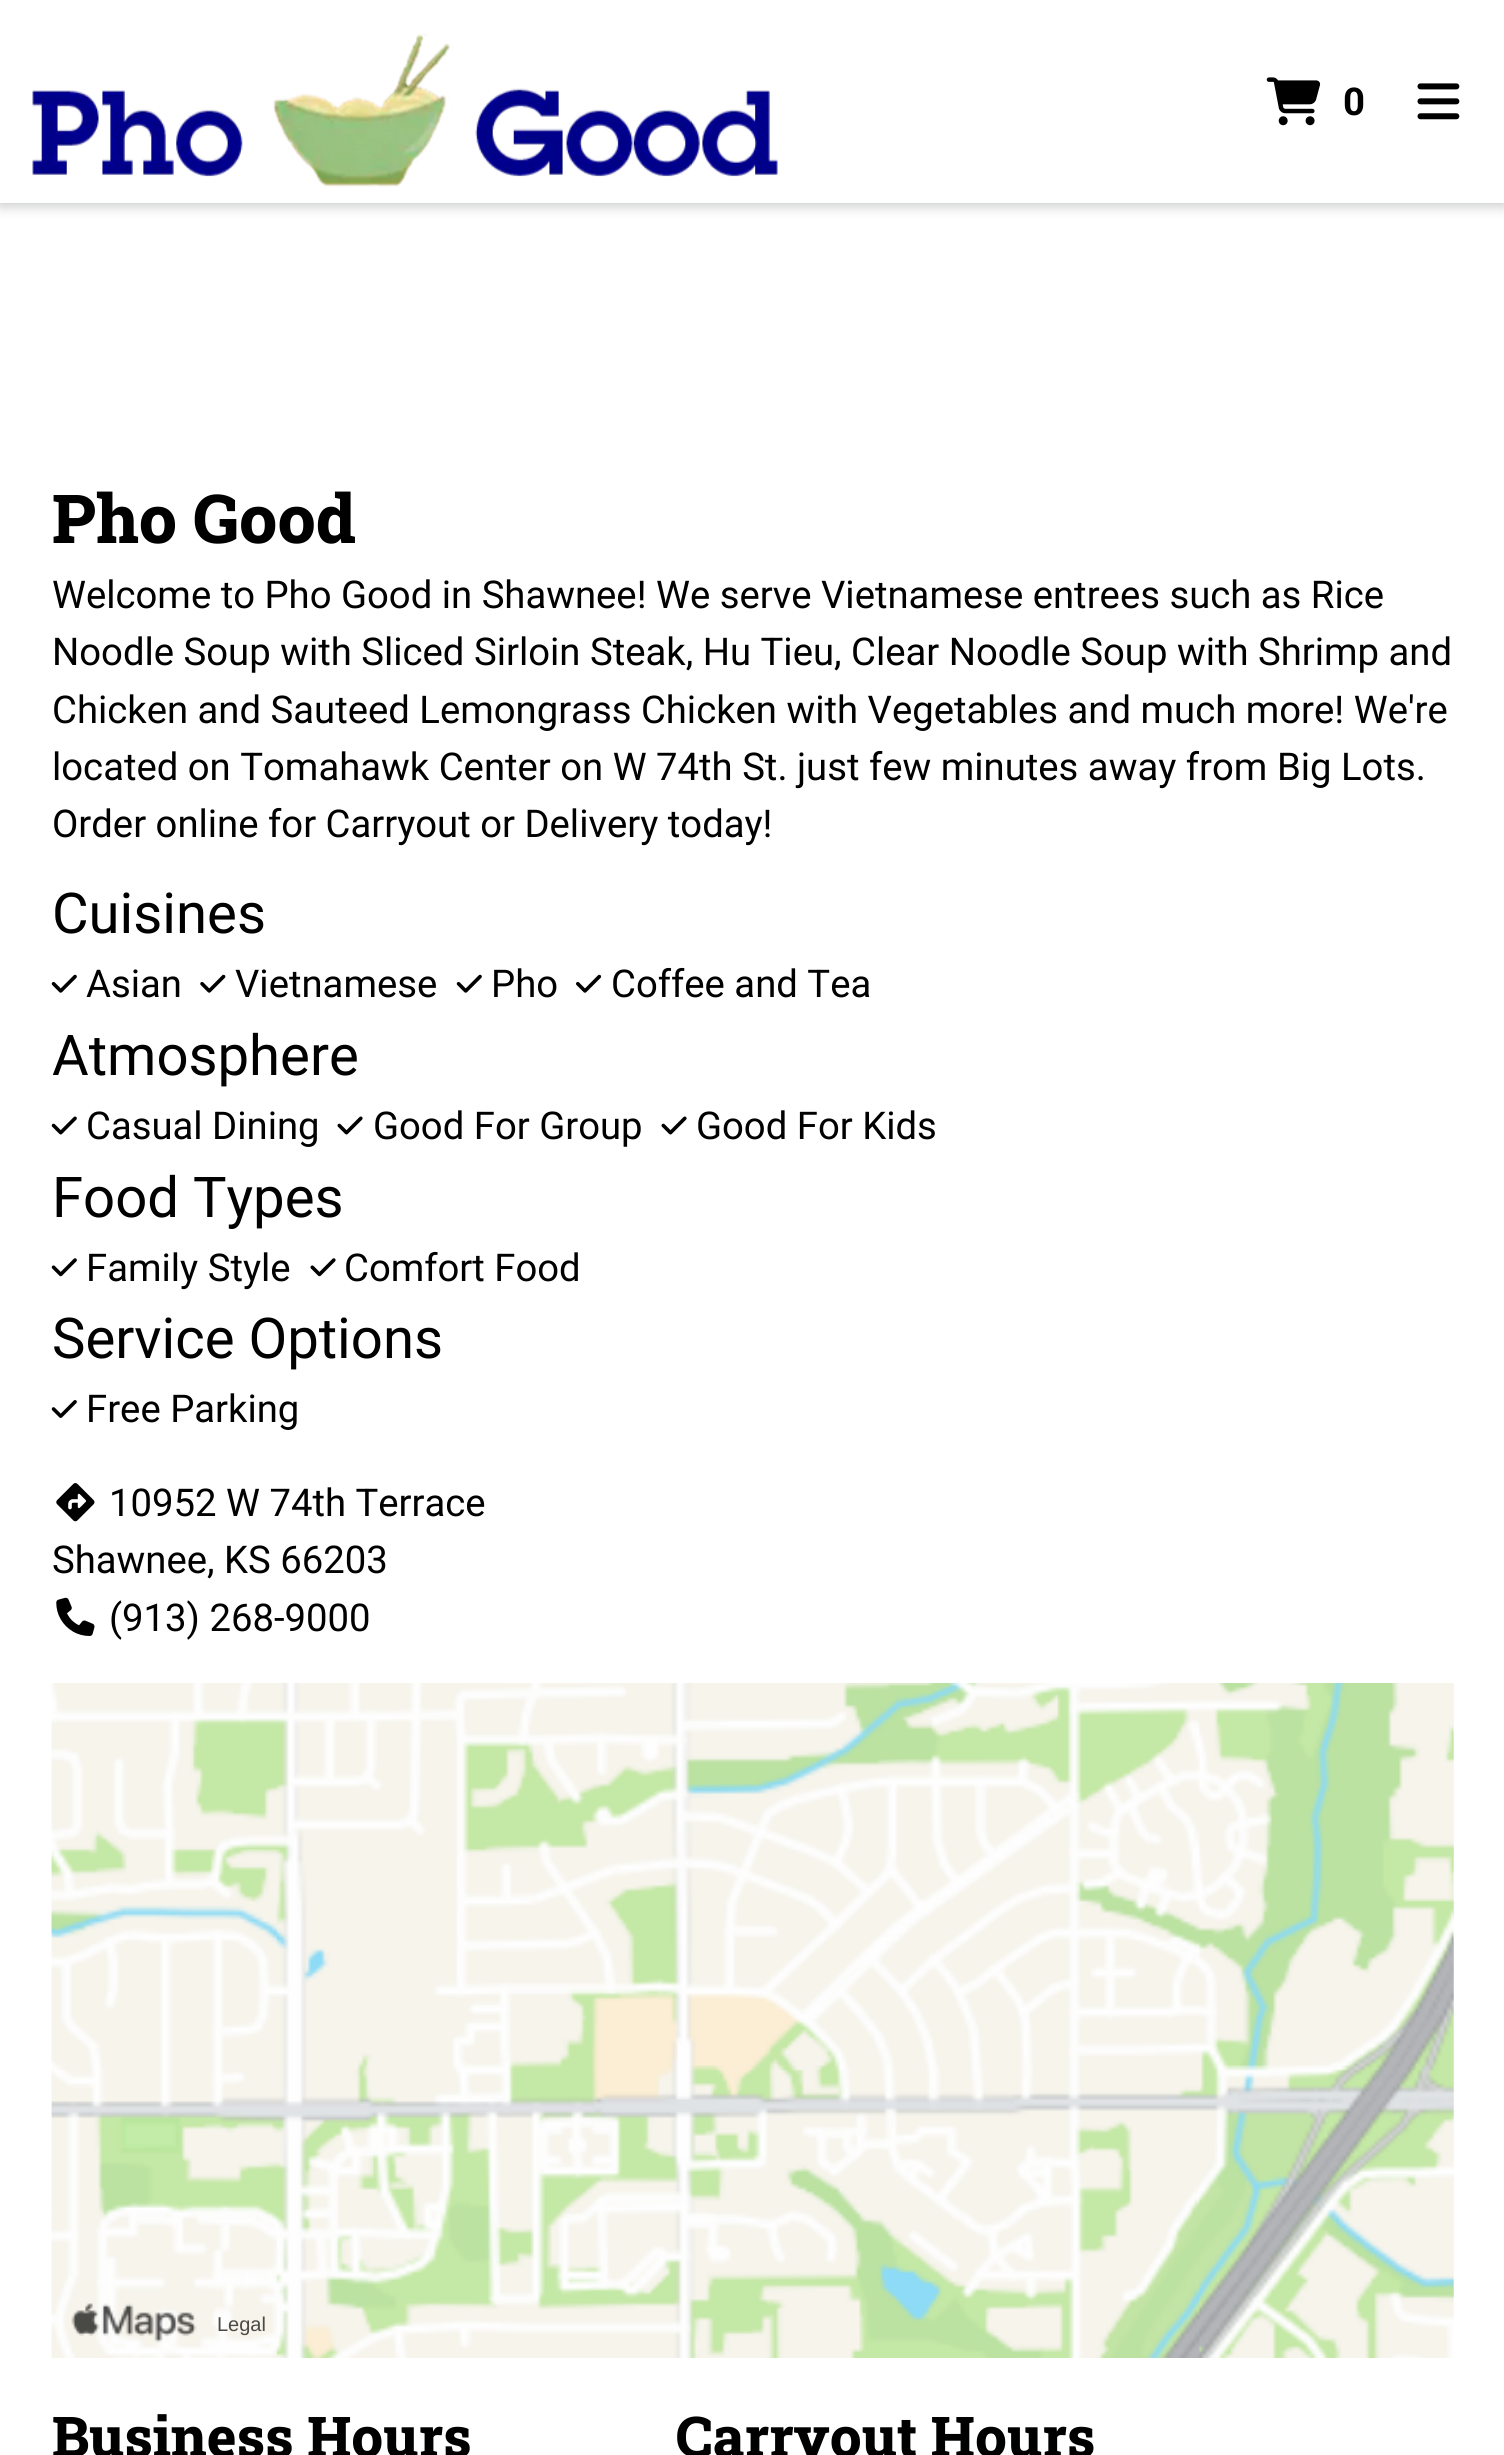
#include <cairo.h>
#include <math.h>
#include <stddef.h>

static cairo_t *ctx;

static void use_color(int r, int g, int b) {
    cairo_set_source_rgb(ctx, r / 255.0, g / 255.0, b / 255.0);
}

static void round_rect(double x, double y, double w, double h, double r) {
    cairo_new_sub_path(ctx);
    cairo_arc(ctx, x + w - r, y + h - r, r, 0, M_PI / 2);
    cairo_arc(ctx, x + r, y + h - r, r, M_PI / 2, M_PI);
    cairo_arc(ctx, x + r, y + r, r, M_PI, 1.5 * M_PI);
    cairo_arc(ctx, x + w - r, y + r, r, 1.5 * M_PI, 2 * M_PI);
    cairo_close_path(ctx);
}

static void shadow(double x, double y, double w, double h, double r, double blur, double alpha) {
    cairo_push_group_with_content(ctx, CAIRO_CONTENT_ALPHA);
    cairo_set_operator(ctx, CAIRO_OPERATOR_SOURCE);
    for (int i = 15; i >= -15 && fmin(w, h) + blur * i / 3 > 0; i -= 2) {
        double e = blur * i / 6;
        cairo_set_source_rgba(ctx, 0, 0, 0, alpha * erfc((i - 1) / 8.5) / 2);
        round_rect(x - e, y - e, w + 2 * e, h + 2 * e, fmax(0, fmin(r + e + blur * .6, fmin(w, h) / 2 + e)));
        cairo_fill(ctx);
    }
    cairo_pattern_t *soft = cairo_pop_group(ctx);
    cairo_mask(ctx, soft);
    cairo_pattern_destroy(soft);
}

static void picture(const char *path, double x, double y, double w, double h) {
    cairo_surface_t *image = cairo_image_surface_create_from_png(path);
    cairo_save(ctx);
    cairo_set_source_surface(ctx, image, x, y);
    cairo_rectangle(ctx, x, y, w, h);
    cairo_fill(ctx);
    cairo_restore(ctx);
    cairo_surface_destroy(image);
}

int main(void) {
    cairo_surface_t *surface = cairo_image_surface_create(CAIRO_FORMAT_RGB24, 1504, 2455);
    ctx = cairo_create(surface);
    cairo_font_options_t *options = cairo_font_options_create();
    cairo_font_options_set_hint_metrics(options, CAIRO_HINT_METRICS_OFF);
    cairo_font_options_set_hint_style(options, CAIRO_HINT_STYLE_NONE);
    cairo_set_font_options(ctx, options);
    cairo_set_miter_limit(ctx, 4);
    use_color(255, 255, 255);
    cairo_paint(ctx);
    use_color(32, 33, 36);
    shadow(0, 2, 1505, 203, 0, 7, 0.28);
    use_color(255, 255, 255);
    cairo_rectangle(ctx, 0, 0, 1504, 203);
    cairo_fill(ctx);
    picture("img1.png", 32, 33, 746, 154);
    picture("img2.png", 1266, 77, 55, 49);
    cairo_select_font_face(ctx, "Roboto Slab", CAIRO_FONT_SLANT_NORMAL, CAIRO_FONT_WEIGHT_BOLD);
    cairo_set_font_size(ctx, 38.25);
    use_color(0, 0, 0);
    cairo_move_to(ctx, 1343, 115);
    cairo_show_text(ctx, "0");
    picture("img3.png", 1417, 83, 43, 37);
    cairo_select_font_face(ctx, "Roboto Slab ExtraBold", CAIRO_FONT_SLANT_NORMAL, CAIRO_FONT_WEIGHT_NORMAL);
    cairo_set_font_size(ctx, 67.5);
    cairo_move_to(ctx, 52, 543);
    cairo_show_text(ctx, "Pho Good");
    cairo_select_font_face(ctx, "Roboto", CAIRO_FONT_SLANT_NORMAL, CAIRO_FONT_WEIGHT_NORMAL);
    cairo_set_font_size(ctx, 38.25);
    cairo_move_to(ctx, 52, 608);
    cairo_show_text(ctx, "Welcome to Pho Good in Shawnee! We serve Vietnamese entrees such as Rice");
    cairo_move_to(ctx, 52, 665);
    cairo_show_text(ctx, "Noodle Soup with Sliced Sirloin Steak, Hu Tieu, Clear Noodle Soup with Shrimp and");
    cairo_move_to(ctx, 52, 723);
    cairo_show_text(ctx, "Chicken and Sauteed Lemongrass Chicken with Vegetables and much more! We're");
    cairo_move_to(ctx, 52, 780);
    cairo_show_text(ctx, "located on Tomahawk Center on W 74th St. just few minutes away from Big Lots.");
    cairo_move_to(ctx, 52, 837);
    cairo_show_text(ctx, "Order online for Carryout or Delivery today!");
    cairo_set_font_size(ctx, 56.25);
    cairo_move_to(ctx, 52, 933);
    cairo_show_text(ctx, "Cuisines");
    picture("img4.png", 51, 974, 26, 19);
    cairo_set_font_size(ctx, 38.25);
    cairo_move_to(ctx, 86, 997);
    cairo_show_text(ctx, "Asian");
    picture("img5.png", 200, 974, 26, 19);
    cairo_move_to(ctx, 235, 997);
    cairo_show_text(ctx, "Vietnamese");
    picture("img4.png", 456, 974, 26, 19);
    cairo_move_to(ctx, 491, 997);
    cairo_show_text(ctx, "Pho");
    picture("img6.png", 576, 974, 26, 19);
    cairo_move_to(ctx, 611, 997);
    cairo_show_text(ctx, "Coffee and Tea");
    cairo_set_font_size(ctx, 56.25);
    cairo_move_to(ctx, 52, 1075);
    cairo_show_text(ctx, "Atmosphere");
    picture("img7.png", 51, 1116, 26, 19);
    cairo_set_font_size(ctx, 38.25);
    cairo_move_to(ctx, 86, 1139);
    cairo_show_text(ctx, "Casual Dining");
    picture("img8.png", 337, 1116, 26, 19);
    cairo_move_to(ctx, 373, 1139);
    cairo_show_text(ctx, "Good For Group");
    picture("img8.png", 661, 1116, 26, 19);
    cairo_move_to(ctx, 696, 1139);
    cairo_show_text(ctx, "Good For Kids");
    cairo_set_font_size(ctx, 56.25);
    cairo_move_to(ctx, 52, 1217);
    cairo_show_text(ctx, "Food Types");
    picture("img9.png", 51, 1258, 26, 19);
    cairo_set_font_size(ctx, 38.25);
    cairo_move_to(ctx, 86, 1281);
    cairo_show_text(ctx, "Family Style");
    picture("img10.png", 310, 1258, 26, 19);
    cairo_move_to(ctx, 344, 1281);
    cairo_show_text(ctx, "Comfort Food");
    cairo_set_font_size(ctx, 56.25);
    cairo_move_to(ctx, 52, 1358);
    cairo_show_text(ctx, "Service Options");
    picture("img11.png", 51, 1400, 26, 18);
    cairo_set_font_size(ctx, 38.25);
    cairo_move_to(ctx, 86, 1422);
    cairo_show_text(ctx, "Free Parking");
    picture("img12.png", 56, 1483, 39, 39);
    cairo_move_to(ctx, 109, 1516);
    cairo_show_text(ctx, "10952 W 74th Terrace");
    cairo_move_to(ctx, 52, 1573);
    cairo_show_text(ctx, "Shawnee, KS 66203");
    picture("img13.png", 56, 1597, 39, 39);
    cairo_move_to(ctx, 109, 1631);
    cairo_show_text(ctx, "(913) 268-9000");
    picture("img14.png", 51, 1683, 1403, 675);
    picture("img15.png", 51, 1683, 1403, 675);
    picture("img16.png", 71, 2303, 126, 40);
    cairo_select_font_face(ctx, "Liberation Sans", CAIRO_FONT_SLANT_NORMAL, CAIRO_FONT_WEIGHT_NORMAL);
    cairo_set_font_size(ctx, 20);
    use_color(74, 74, 72);
    cairo_move_to(ctx, 217, 2331);
    cairo_show_text(ctx, "Legal");
    cairo_select_font_face(ctx, "Roboto Slab ExtraBold", CAIRO_FONT_SLANT_NORMAL, CAIRO_FONT_WEIGHT_NORMAL);
    cairo_set_font_size(ctx, 56.25);
    use_color(0, 0, 0);
    cairo_move_to(ctx, 52, 2457);
    cairo_show_text(ctx, "Business Hours");
    cairo_move_to(ctx, 676, 2457);
    cairo_show_text(ctx, "Carryout Hours");
    cairo_surface_write_to_png(surface, "result.png");
    cairo_font_options_destroy(options);
    cairo_destroy(ctx);
    cairo_surface_destroy(surface);
    return 0;
}
